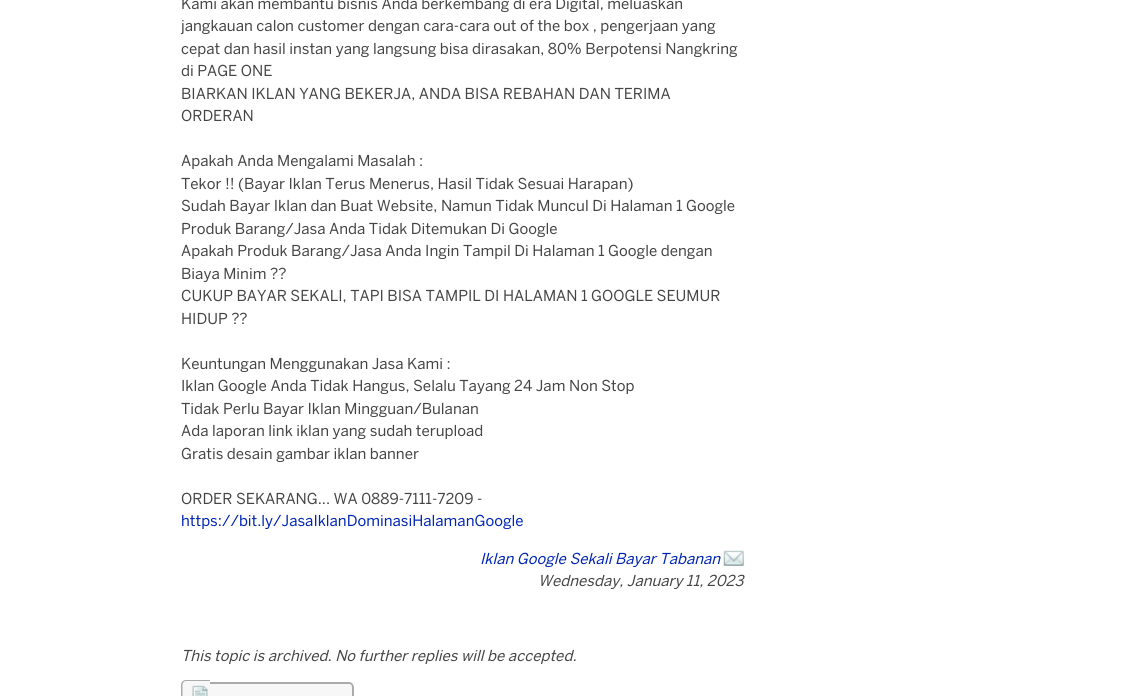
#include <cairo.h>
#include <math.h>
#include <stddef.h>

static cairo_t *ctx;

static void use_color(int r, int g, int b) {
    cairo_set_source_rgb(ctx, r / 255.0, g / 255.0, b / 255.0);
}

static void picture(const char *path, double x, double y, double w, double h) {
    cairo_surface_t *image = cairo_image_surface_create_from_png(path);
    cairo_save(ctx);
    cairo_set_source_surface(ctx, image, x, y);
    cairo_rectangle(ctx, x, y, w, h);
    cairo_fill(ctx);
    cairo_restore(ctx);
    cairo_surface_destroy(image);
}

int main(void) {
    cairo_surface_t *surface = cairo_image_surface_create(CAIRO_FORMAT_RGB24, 1130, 696);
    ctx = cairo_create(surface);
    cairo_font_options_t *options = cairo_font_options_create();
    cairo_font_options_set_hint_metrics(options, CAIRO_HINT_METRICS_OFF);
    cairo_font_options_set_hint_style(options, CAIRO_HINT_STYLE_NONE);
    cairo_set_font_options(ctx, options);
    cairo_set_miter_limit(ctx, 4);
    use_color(255, 255, 255);
    cairo_paint(ctx);
    cairo_select_font_face(ctx, "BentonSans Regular", CAIRO_FONT_SLANT_NORMAL, CAIRO_FONT_WEIGHT_NORMAL);
    cairo_set_font_size(ctx, 15);
    use_color(68, 68, 68);
    cairo_move_to(ctx, 181, 9);
    cairo_show_text(ctx, "Kami akan membantu bisnis Anda berkembang di era Digital, meluaskan");
    cairo_move_to(ctx, 181, 31);
    cairo_show_text(ctx, "jangkauan calon customer dengan cara-cara out of the box , pengerjaan yang");
    cairo_move_to(ctx, 181, 54);
    cairo_show_text(ctx, "cepat dan hasil instan yang langsung bisa dirasakan, 80% Berpotensi Nangkring");
    cairo_move_to(ctx, 181, 76);
    cairo_show_text(ctx, "di PAGE ONE");
    cairo_move_to(ctx, 181, 99);
    cairo_show_text(ctx, "BIARKAN IKLAN YANG BEKERJA, ANDA BISA REBAHAN DAN TERIMA");
    cairo_move_to(ctx, 181, 121);
    cairo_show_text(ctx, "ORDERAN");
    cairo_move_to(ctx, 181, 166);
    cairo_show_text(ctx, "Apakah Anda Mengalami Masalah :");
    cairo_move_to(ctx, 181, 189);
    cairo_show_text(ctx, "Tekor !! (Bayar Iklan Terus Menerus, Hasil Tidak Sesuai Harapan)");
    cairo_move_to(ctx, 181, 211);
    cairo_show_text(ctx, "Sudah Bayar Iklan dan Buat Website, Namun Tidak Muncul Di Halaman 1 Google");
    cairo_move_to(ctx, 181, 234);
    cairo_show_text(ctx, "Produk Barang/Jasa Anda Tidak Ditemukan Di Google");
    cairo_move_to(ctx, 181, 256);
    cairo_show_text(ctx, "Apakah Produk Barang/Jasa Anda Ingin Tampil Di Halaman 1 Google dengan");
    cairo_move_to(ctx, 181, 279);
    cairo_show_text(ctx, "Biaya Minim ?\077");
    cairo_move_to(ctx, 181, 301);
    cairo_show_text(ctx, "CUKUP BAYAR SEKALI, TAPI BISA TAMPIL DI HALAMAN 1 GOOGLE SEUMUR");
    cairo_move_to(ctx, 181, 324);
    cairo_show_text(ctx, "HIDUP ?\077");
    cairo_move_to(ctx, 181, 369);
    cairo_show_text(ctx, "Keuntungan Menggunakan Jasa Kami :");
    cairo_move_to(ctx, 181, 391);
    cairo_show_text(ctx, "Iklan Google Anda Tidak Hangus, Selalu Tayang 24 Jam Non Stop");
    cairo_move_to(ctx, 181, 414);
    cairo_show_text(ctx, "Tidak Perlu Bayar Iklan Mingguan/Bulanan");
    cairo_move_to(ctx, 181, 436);
    cairo_show_text(ctx, "Ada laporan link iklan yang sudah terupload");
    cairo_move_to(ctx, 181, 459);
    cairo_show_text(ctx, "Gratis desain gambar iklan banner");
    cairo_move_to(ctx, 181, 504);
    cairo_show_text(ctx, "ORDER SEKARANG... WA 0889-7111-7209 -");
    use_color(0, 36, 179);
    cairo_move_to(ctx, 181, 526);
    cairo_show_text(ctx, "https://bit.ly/JasaIklanDominasiHalamanGoogle");
    cairo_select_font_face(ctx, "BentonSans Regular", CAIRO_FONT_SLANT_ITALIC, CAIRO_FONT_WEIGHT_NORMAL);
    cairo_move_to(ctx, 480, 564);
    cairo_show_text(ctx, "Iklan Google Sekali Bayar Tabanan");
    picture("img1.png", 723, 550, 21, 16);
    use_color(68, 68, 68);
    cairo_move_to(ctx, 538, 586);
    cairo_show_text(ctx, "Wednesday, January 11, 2023");
    cairo_move_to(ctx, 181, 661);
    cairo_show_text(ctx, "This topic is archived. No further replies will be accepted.");
    use_color(247, 247, 247);
    cairo_new_path(ctx);
    cairo_move_to(ctx, 186, 680);
    cairo_line_to(ctx, 210, 680);
    cairo_line_to(ctx, 210, 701);
    cairo_line_to(ctx, 186, 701);
    cairo_curve_to(ctx, 183, 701, 181, 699, 181, 696);
    cairo_line_to(ctx, 181, 685);
    cairo_curve_to(ctx, 181, 682, 183, 680, 186, 680);
    cairo_close_path(ctx);
    cairo_fill(ctx);
    use_color(170, 170, 170);
    cairo_set_fill_rule(ctx, CAIRO_FILL_RULE_EVEN_ODD);
    cairo_new_path(ctx);
    cairo_move_to(ctx, 186, 680);
    cairo_line_to(ctx, 210, 680);
    cairo_line_to(ctx, 210, 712.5);
    cairo_line_to(ctx, 186, 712.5);
    cairo_curve_to(ctx, 183.5, 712.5, 181, 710.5, 181, 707.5);
    cairo_line_to(ctx, 181, 685);
    cairo_curve_to(ctx, 181, 682, 183.5, 680, 186, 680);
    cairo_close_path(ctx);
    cairo_move_to(ctx, 186, 681);
    cairo_line_to(ctx, 210, 681);
    cairo_line_to(ctx, 210, 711);
    cairo_line_to(ctx, 186, 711);
    cairo_curve_to(ctx, 184, 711, 182.5, 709.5, 182.5, 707.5);
    cairo_line_to(ctx, 182.5, 685);
    cairo_curve_to(ctx, 182.5, 683, 184, 681, 186, 681);
    cairo_close_path(ctx);
    cairo_fill(ctx);
    use_color(247, 247, 247);
    cairo_new_path(ctx);
    cairo_move_to(ctx, 210, 683);
    cairo_line_to(ctx, 349, 683);
    cairo_curve_to(ctx, 352, 683, 354, 685, 354, 688);
    cairo_line_to(ctx, 354, 696);
    cairo_curve_to(ctx, 354, 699, 352, 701, 349, 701);
    cairo_line_to(ctx, 210, 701);
    cairo_close_path(ctx);
    cairo_fill(ctx);
    use_color(170, 170, 170);
    cairo_new_path(ctx);
    cairo_move_to(ctx, 210, 682);
    cairo_line_to(ctx, 349, 682);
    cairo_curve_to(ctx, 352, 682, 354, 685, 354, 688);
    cairo_line_to(ctx, 354, 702);
    cairo_curve_to(ctx, 354, 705, 352, 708, 349, 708);
    cairo_line_to(ctx, 210, 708);
    cairo_close_path(ctx);
    cairo_move_to(ctx, 210, 684);
    cairo_line_to(ctx, 349, 684);
    cairo_curve_to(ctx, 351, 684, 352, 685, 352, 688);
    cairo_line_to(ctx, 352, 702);
    cairo_curve_to(ctx, 352, 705, 351, 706, 349, 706);
    cairo_line_to(ctx, 210, 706);
    cairo_close_path(ctx);
    cairo_fill(ctx);
    picture("img2.png", 192, 685, 16, 11);
    cairo_surface_write_to_png(surface, "result.png");
    cairo_font_options_destroy(options);
    cairo_destroy(ctx);
    cairo_surface_destroy(surface);
    return 0;
}
